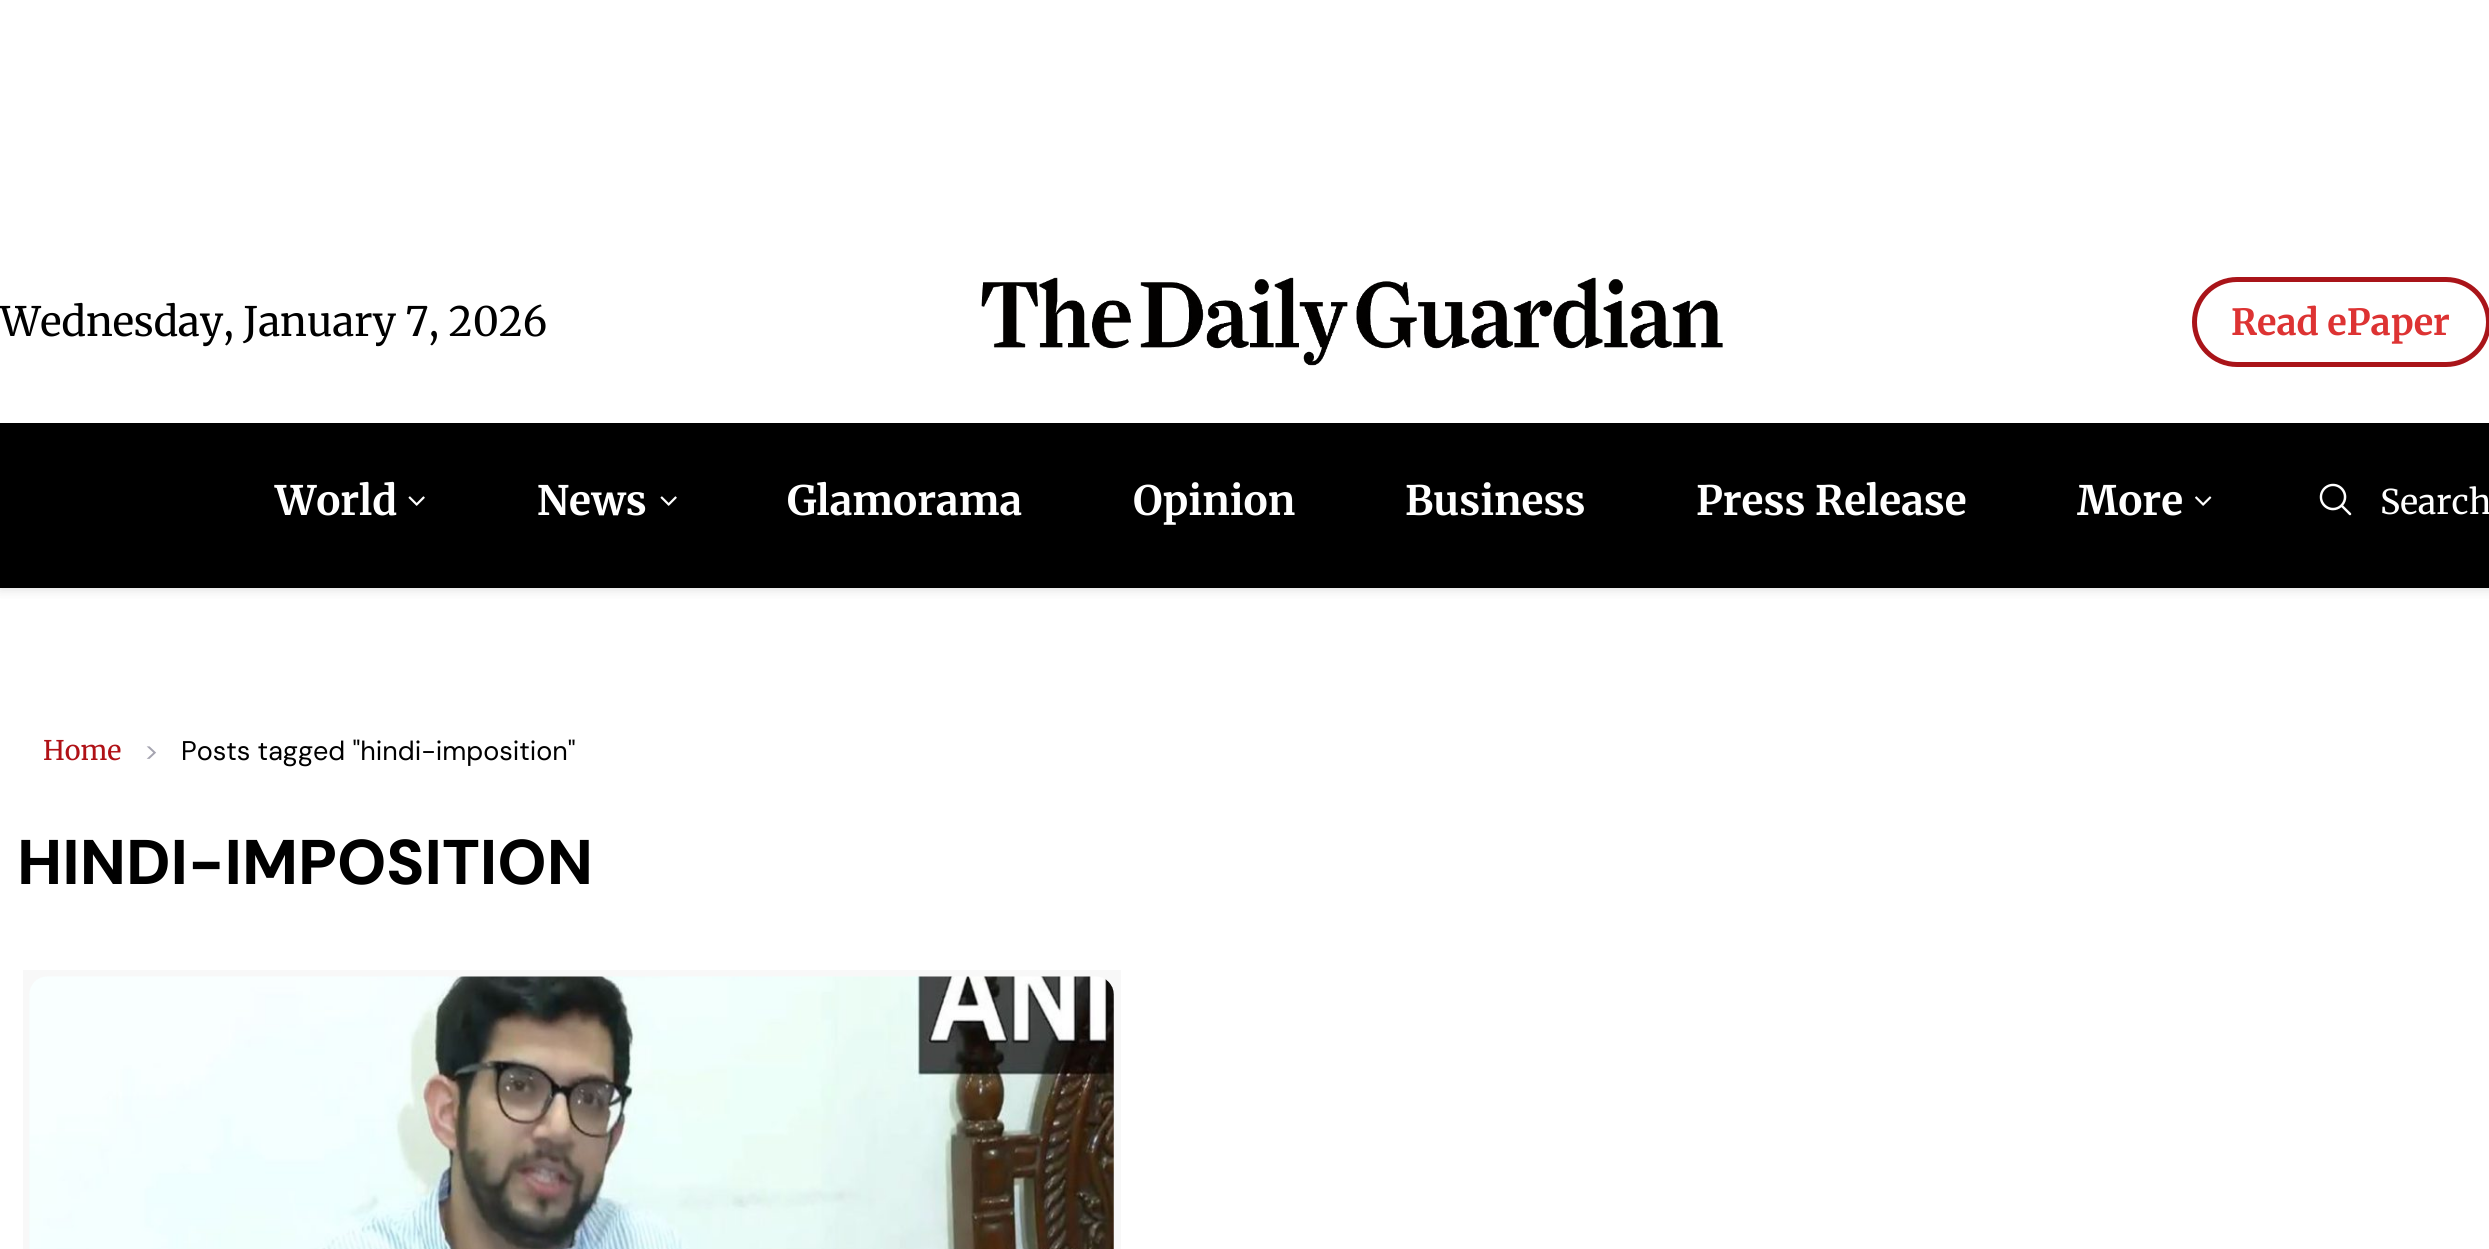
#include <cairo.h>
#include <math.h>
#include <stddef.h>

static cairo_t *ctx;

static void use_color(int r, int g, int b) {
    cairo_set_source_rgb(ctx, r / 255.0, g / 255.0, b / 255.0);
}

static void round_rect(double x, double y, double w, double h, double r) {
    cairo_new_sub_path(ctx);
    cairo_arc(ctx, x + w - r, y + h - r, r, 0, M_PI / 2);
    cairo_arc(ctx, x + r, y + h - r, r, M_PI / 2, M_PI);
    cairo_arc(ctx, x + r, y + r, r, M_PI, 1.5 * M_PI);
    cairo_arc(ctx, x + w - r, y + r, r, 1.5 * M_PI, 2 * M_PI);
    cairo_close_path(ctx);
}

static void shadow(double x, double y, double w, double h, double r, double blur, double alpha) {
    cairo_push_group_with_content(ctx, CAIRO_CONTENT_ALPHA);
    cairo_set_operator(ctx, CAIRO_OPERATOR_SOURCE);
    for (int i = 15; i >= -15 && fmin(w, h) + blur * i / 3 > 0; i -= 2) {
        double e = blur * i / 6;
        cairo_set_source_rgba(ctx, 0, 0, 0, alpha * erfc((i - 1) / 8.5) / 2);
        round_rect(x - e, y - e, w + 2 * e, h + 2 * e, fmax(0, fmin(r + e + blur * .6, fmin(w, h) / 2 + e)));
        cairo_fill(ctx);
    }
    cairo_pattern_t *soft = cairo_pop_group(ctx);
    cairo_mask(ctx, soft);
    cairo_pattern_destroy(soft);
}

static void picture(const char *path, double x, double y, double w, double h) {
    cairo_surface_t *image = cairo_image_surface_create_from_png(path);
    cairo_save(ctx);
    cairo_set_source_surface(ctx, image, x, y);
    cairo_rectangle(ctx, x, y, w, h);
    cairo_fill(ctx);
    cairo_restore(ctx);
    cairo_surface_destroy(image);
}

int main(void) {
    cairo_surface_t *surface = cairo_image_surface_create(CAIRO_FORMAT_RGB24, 2489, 1249);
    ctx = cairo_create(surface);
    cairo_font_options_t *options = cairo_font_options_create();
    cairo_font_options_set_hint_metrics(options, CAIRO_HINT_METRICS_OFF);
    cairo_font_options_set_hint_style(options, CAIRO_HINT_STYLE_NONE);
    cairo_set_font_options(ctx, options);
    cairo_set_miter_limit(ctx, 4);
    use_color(255, 255, 255);
    cairo_paint(ctx);
    cairo_save(ctx);
    cairo_rectangle(ctx, 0, 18, 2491, 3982);
    cairo_clip(ctx);
    cairo_rectangle(ctx, 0, 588, 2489, 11);
    cairo_clip(ctx);
    use_color(190, 190, 190);
    shadow(0, 20, 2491, 570, 0, 5.5, 0.46);
    cairo_restore(ctx);
    cairo_select_font_face(ctx, "Merriweather", CAIRO_FONT_SLANT_NORMAL, CAIRO_FONT_WEIGHT_NORMAL);
    cairo_set_font_size(ctx, 40.5);
    use_color(0, 0, 0);
    cairo_move_to(ctx, 0, 336);
    cairo_show_text(ctx, "Wednesday, January 7, 2026");
    picture("img1.png", 981, 277, 742, 89);
    round_rect(2194.5, 279.5, 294, 85, 42.5);
    use_color(169, 20, 25);
    cairo_set_line_width(ctx, 5);
    cairo_stroke(ctx);
    cairo_select_font_face(ctx, "Merriweather", CAIRO_FONT_SLANT_NORMAL, CAIRO_FONT_WEIGHT_BOLD);
    cairo_set_font_size(ctx, 36);
    use_color(221, 51, 51);
    cairo_move_to(ctx, 2231, 335);
    cairo_show_text(ctx, "Read ePaper");
    use_color(0, 0, 0);
    cairo_rectangle(ctx, 0, 423, 2489, 165);
    cairo_fill(ctx);
    cairo_set_font_size(ctx, 40.5);
    use_color(255, 255, 255);
    cairo_move_to(ctx, 275, 515);
    cairo_show_text(ctx, "World");
    picture("img2.png", 408, 496, 17, 10);
    cairo_move_to(ctx, 537, 515);
    cairo_show_text(ctx, "News");
    picture("img2.png", 660, 496, 17, 10);
    cairo_move_to(ctx, 787, 515);
    cairo_show_text(ctx, "Glamorama");
    cairo_move_to(ctx, 1133, 515);
    cairo_show_text(ctx, "Opinion");
    cairo_move_to(ctx, 1405, 515);
    cairo_show_text(ctx, "Business");
    cairo_move_to(ctx, 1696, 515);
    cairo_show_text(ctx, "Press Release");
    cairo_move_to(ctx, 2077, 515);
    cairo_show_text(ctx, "More");
    picture("img3.png", 2195, 496, 17, 10);
    picture("img4.png", 2319, 483, 33, 33);
    cairo_select_font_face(ctx, "Merriweather", CAIRO_FONT_SLANT_NORMAL, CAIRO_FONT_WEIGHT_NORMAL);
    cairo_set_font_size(ctx, 34);
    cairo_move_to(ctx, 2380, 514);
    cairo_show_text(ctx, "Search");
    cairo_set_font_size(ctx, 27);
    use_color(176, 17, 22);
    cairo_move_to(ctx, 43, 760);
    cairo_show_text(ctx, "Home");
    cairo_select_font_face(ctx, "DM Sans", CAIRO_FONT_SLANT_NORMAL, CAIRO_FONT_WEIGHT_NORMAL);
    use_color(165, 164, 176);
    cairo_move_to(ctx, 144, 760);
    cairo_show_text(ctx, ">");
    use_color(0, 0, 0);
    cairo_move_to(ctx, 181, 760);
    cairo_show_text(ctx, "Posts tagged \"hindi-imposition\"");
    cairo_select_font_face(ctx, "DM Sans ExtraBold", CAIRO_FONT_SLANT_NORMAL, CAIRO_FONT_WEIGHT_NORMAL);
    cairo_set_font_size(ctx, 63);
    cairo_move_to(ctx, 17, 884);
    cairo_show_text(ctx, "HINDI-IMPOSITION");
    use_color(248, 248, 248);
    cairo_rectangle(ctx, 23, 970, 1098, 279);
    cairo_fill(ctx);
    cairo_save(ctx);
    round_rect(29, 977, 1085, 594, 18);
    cairo_clip(ctx);
    use_color(245, 245, 245);
    round_rect(27, 974, 1089, 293, 18);
    cairo_fill(ctx);
    cairo_restore(ctx);
    picture("img5.png", 29, 976, 1085, 273);
    cairo_surface_write_to_png(surface, "result.png");
    cairo_font_options_destroy(options);
    cairo_destroy(ctx);
    cairo_surface_destroy(surface);
    return 0;
}
